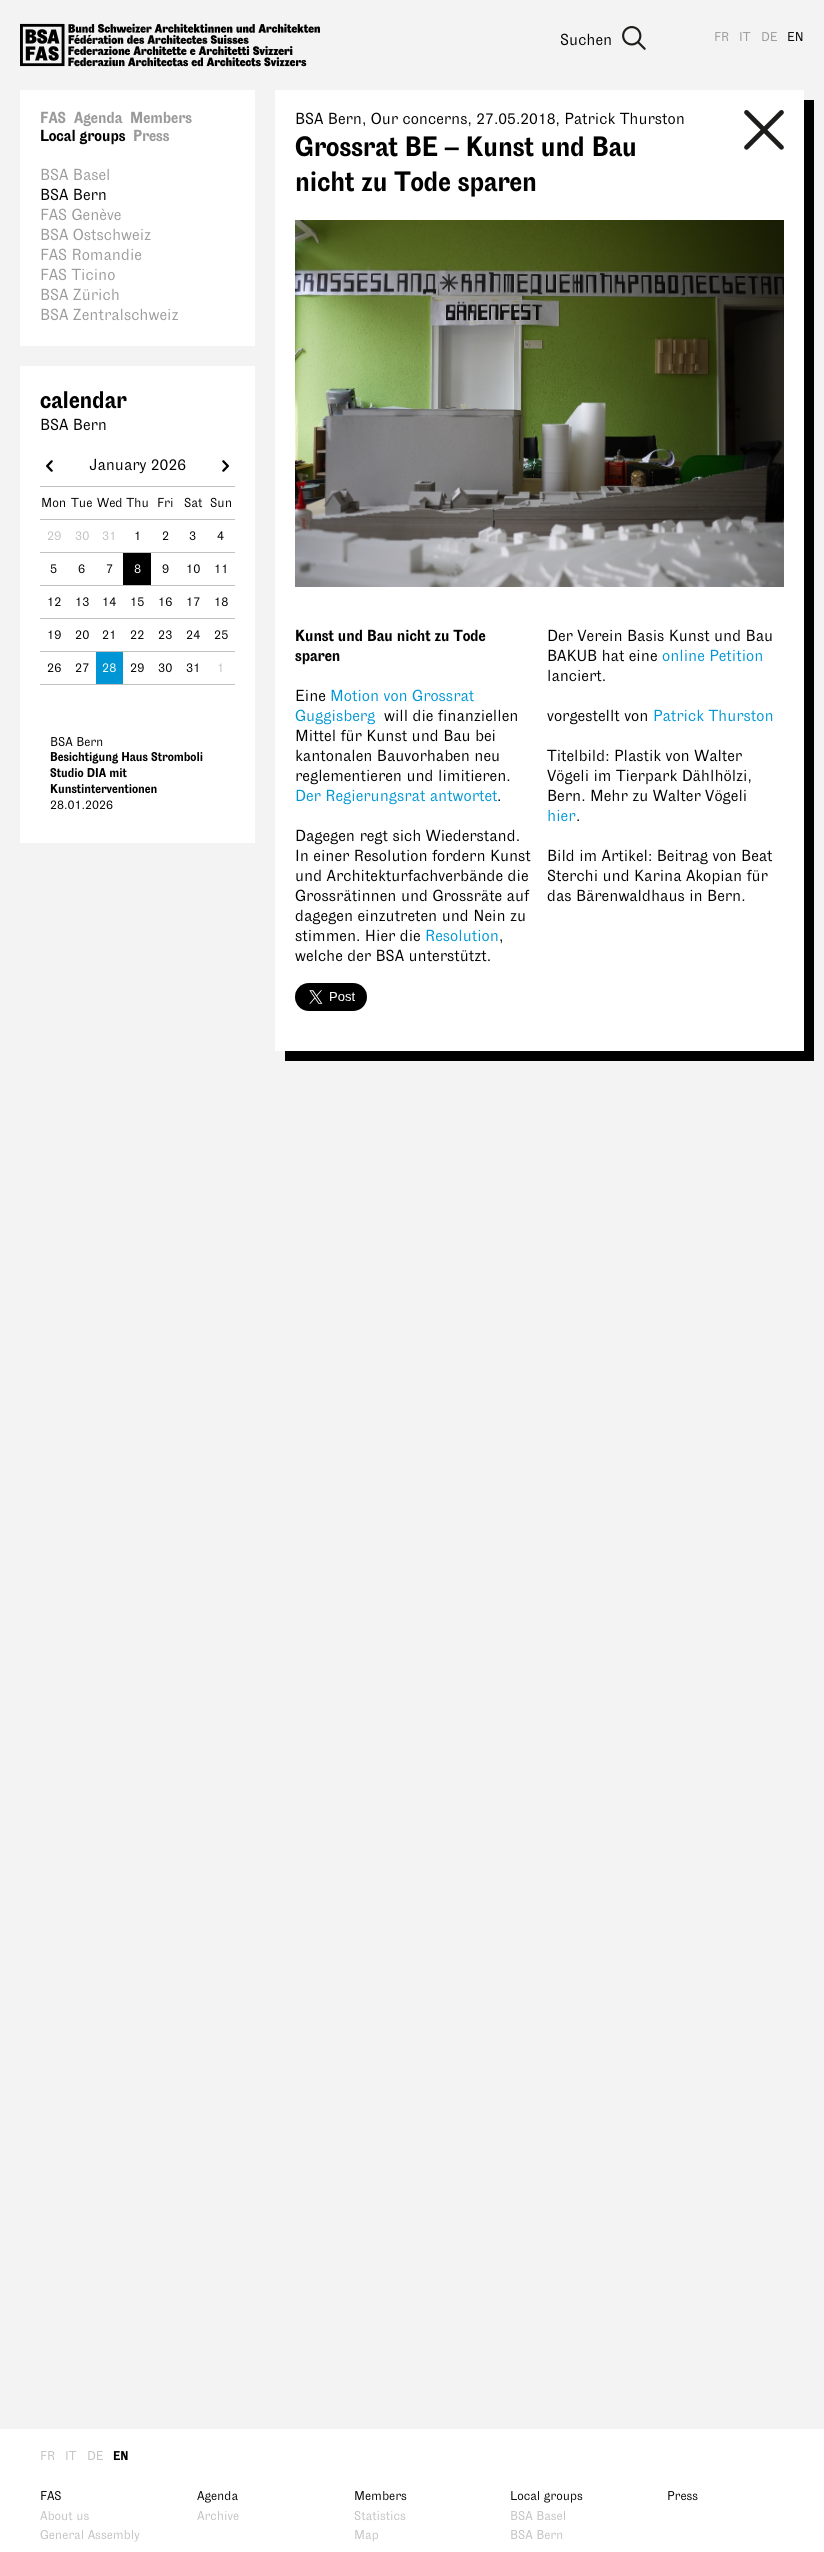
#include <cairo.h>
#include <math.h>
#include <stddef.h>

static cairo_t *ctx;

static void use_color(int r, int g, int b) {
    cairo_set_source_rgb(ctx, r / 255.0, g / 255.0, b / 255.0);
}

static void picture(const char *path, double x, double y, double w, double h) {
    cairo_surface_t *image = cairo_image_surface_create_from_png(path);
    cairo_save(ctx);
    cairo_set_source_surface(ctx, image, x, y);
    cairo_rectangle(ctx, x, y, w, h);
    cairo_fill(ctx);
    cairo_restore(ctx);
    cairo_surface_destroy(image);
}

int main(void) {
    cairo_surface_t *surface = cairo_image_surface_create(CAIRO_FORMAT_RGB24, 824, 2552);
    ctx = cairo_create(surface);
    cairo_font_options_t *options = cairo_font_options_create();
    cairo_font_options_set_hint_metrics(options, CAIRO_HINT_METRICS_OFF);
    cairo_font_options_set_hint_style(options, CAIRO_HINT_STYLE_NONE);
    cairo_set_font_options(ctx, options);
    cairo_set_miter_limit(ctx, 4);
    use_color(243, 243, 243);
    cairo_paint(ctx);
    picture("img1.png", 20, 23, 300, 44);
    cairo_select_font_face(ctx, "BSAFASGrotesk", CAIRO_FONT_SLANT_NORMAL, CAIRO_FONT_WEIGHT_NORMAL);
    cairo_set_font_size(ctx, 12.75);
    use_color(154, 154, 154);
    cairo_move_to(ctx, 714, 41);
    cairo_show_text(ctx, "FR");
    cairo_move_to(ctx, 739, 41);
    cairo_show_text(ctx, "IT");
    cairo_move_to(ctx, 761, 41);
    cairo_show_text(ctx, "DE");
    use_color(0, 0, 0);
    cairo_move_to(ctx, 787, 41);
    cairo_show_text(ctx, "EN");
    use_color(255, 255, 255);
    cairo_rectangle(ctx, 20, 90, 235, 256);
    cairo_fill(ctx);
    cairo_select_font_face(ctx, "BSAFASGrotesk", CAIRO_FONT_SLANT_NORMAL, CAIRO_FONT_WEIGHT_BOLD);
    cairo_set_font_size(ctx, 16);
    use_color(154, 154, 154);
    cairo_move_to(ctx, 40, 123);
    cairo_show_text(ctx, "FAS");
    cairo_move_to(ctx, 74, 123);
    cairo_show_text(ctx, "Agenda");
    cairo_move_to(ctx, 130, 123);
    cairo_show_text(ctx, "Members");
    use_color(0, 0, 0);
    cairo_move_to(ctx, 40, 141);
    cairo_show_text(ctx, "Local groups");
    use_color(154, 154, 154);
    cairo_move_to(ctx, 133, 141);
    cairo_show_text(ctx, "Press");
    cairo_select_font_face(ctx, "BSAFASGrotesk", CAIRO_FONT_SLANT_NORMAL, CAIRO_FONT_WEIGHT_NORMAL);
    cairo_move_to(ctx, 40, 180);
    cairo_show_text(ctx, "BSA Basel");
    use_color(0, 0, 0);
    cairo_move_to(ctx, 40, 200);
    cairo_show_text(ctx, "BSA Bern");
    use_color(154, 154, 154);
    cairo_move_to(ctx, 40, 220);
    cairo_show_text(ctx, "FAS Genève");
    cairo_move_to(ctx, 40, 240);
    cairo_show_text(ctx, "BSA Ostschweiz");
    cairo_move_to(ctx, 40, 260);
    cairo_show_text(ctx, "FAS Romandie");
    cairo_move_to(ctx, 40, 280);
    cairo_show_text(ctx, "FAS Ticino");
    cairo_move_to(ctx, 40, 300);
    cairo_show_text(ctx, "BSA Zürich");
    cairo_move_to(ctx, 40, 320);
    cairo_show_text(ctx, "BSA Zentralschweiz");
    use_color(0, 0, 0);
    cairo_move_to(ctx, 560, 45);
    cairo_show_text(ctx, "Suchen");
    picture("img2.png", 622, 26, 24, 24);
    use_color(255, 255, 255);
    cairo_rectangle(ctx, 20, 366, 235, 477);
    cairo_fill(ctx);
    cairo_select_font_face(ctx, "BSAFASGrotesk", CAIRO_FONT_SLANT_NORMAL, CAIRO_FONT_WEIGHT_BOLD);
    cairo_set_font_size(ctx, 24);
    use_color(0, 0, 0);
    cairo_move_to(ctx, 40, 408);
    cairo_show_text(ctx, "calendar");
    cairo_select_font_face(ctx, "BSAFASGrotesk", CAIRO_FONT_SLANT_NORMAL, CAIRO_FONT_WEIGHT_NORMAL);
    cairo_set_font_size(ctx, 16);
    cairo_move_to(ctx, 40, 430);
    cairo_show_text(ctx, "BSA Bern");
    picture("img3.png", 46, 460, 7, 12);
    cairo_move_to(ctx, 89, 470);
    cairo_show_text(ctx, "January 2026");
    picture("img4.png", 222, 460, 7, 12);
    use_color(193, 193, 193);
    cairo_rectangle(ctx, 40, 486, 195, 1);
    cairo_fill(ctx);
    cairo_rectangle(ctx, 40, 519, 195, 1);
    cairo_fill(ctx);
    cairo_set_font_size(ctx, 13);
    use_color(0, 0, 0);
    cairo_move_to(ctx, 41, 507);
    cairo_show_text(ctx, "Mon");
    cairo_move_to(ctx, 71, 507);
    cairo_show_text(ctx, "Tue");
    cairo_move_to(ctx, 97, 507);
    cairo_show_text(ctx, "Wed Thu");
    cairo_move_to(ctx, 157, 507);
    cairo_show_text(ctx, "Fri");
    cairo_move_to(ctx, 184, 507);
    cairo_show_text(ctx, "Sat");
    cairo_move_to(ctx, 210, 507);
    cairo_show_text(ctx, "Sun");
    use_color(193, 193, 193);
    cairo_rectangle(ctx, 40, 552, 195, 1);
    cairo_fill(ctx);
    cairo_move_to(ctx, 47, 540);
    cairo_show_text(ctx, "29");
    cairo_move_to(ctx, 75, 540);
    cairo_show_text(ctx, "30");
    cairo_move_to(ctx, 102, 540);
    cairo_show_text(ctx, "31");
    use_color(0, 0, 0);
    cairo_move_to(ctx, 134, 540);
    cairo_show_text(ctx, "1");
    cairo_move_to(ctx, 162, 540);
    cairo_show_text(ctx, "2");
    cairo_move_to(ctx, 189, 540);
    cairo_show_text(ctx, "3");
    cairo_move_to(ctx, 217, 540);
    cairo_show_text(ctx, "4");
    use_color(193, 193, 193);
    cairo_rectangle(ctx, 40, 585, 195, 1);
    cairo_fill(ctx);
    use_color(0, 0, 0);
    cairo_move_to(ctx, 50, 573);
    cairo_show_text(ctx, "5");
    cairo_move_to(ctx, 78, 573);
    cairo_show_text(ctx, "6");
    cairo_move_to(ctx, 106, 573);
    cairo_show_text(ctx, "7");
    cairo_rectangle(ctx, 123, 553, 28, 32);
    cairo_fill(ctx);
    use_color(255, 255, 255);
    cairo_move_to(ctx, 134, 573);
    cairo_show_text(ctx, "8");
    use_color(0, 0, 0);
    cairo_move_to(ctx, 162, 573);
    cairo_show_text(ctx, "9");
    cairo_move_to(ctx, 186, 573);
    cairo_show_text(ctx, "10");
    cairo_move_to(ctx, 214, 573);
    cairo_show_text(ctx, "11");
    use_color(193, 193, 193);
    cairo_rectangle(ctx, 40, 618, 195, 1);
    cairo_fill(ctx);
    use_color(0, 0, 0);
    cairo_move_to(ctx, 47, 606);
    cairo_show_text(ctx, "12");
    cairo_move_to(ctx, 75, 606);
    cairo_show_text(ctx, "13");
    cairo_move_to(ctx, 102, 606);
    cairo_show_text(ctx, "14");
    cairo_move_to(ctx, 130, 606);
    cairo_show_text(ctx, "15");
    cairo_move_to(ctx, 158, 606);
    cairo_show_text(ctx, "16");
    cairo_move_to(ctx, 186, 606);
    cairo_show_text(ctx, "17");
    cairo_move_to(ctx, 214, 606);
    cairo_show_text(ctx, "18");
    use_color(193, 193, 193);
    cairo_rectangle(ctx, 40, 651, 195, 1);
    cairo_fill(ctx);
    use_color(0, 0, 0);
    cairo_move_to(ctx, 47, 639);
    cairo_show_text(ctx, "19");
    cairo_move_to(ctx, 75, 639);
    cairo_show_text(ctx, "20");
    cairo_move_to(ctx, 102, 639);
    cairo_show_text(ctx, "21");
    cairo_move_to(ctx, 130, 639);
    cairo_show_text(ctx, "22");
    cairo_move_to(ctx, 158, 639);
    cairo_show_text(ctx, "23");
    cairo_move_to(ctx, 186, 639);
    cairo_show_text(ctx, "24");
    cairo_move_to(ctx, 214, 639);
    cairo_show_text(ctx, "25");
    use_color(193, 193, 193);
    cairo_rectangle(ctx, 40, 684, 195, 1);
    cairo_fill(ctx);
    use_color(0, 0, 0);
    cairo_move_to(ctx, 47, 672);
    cairo_show_text(ctx, "26");
    cairo_move_to(ctx, 75, 672);
    cairo_show_text(ctx, "27");
    use_color(0, 150, 213);
    cairo_rectangle(ctx, 96, 652, 27, 32);
    cairo_fill(ctx);
    use_color(255, 255, 255);
    cairo_move_to(ctx, 102, 672);
    cairo_show_text(ctx, "28");
    use_color(0, 0, 0);
    cairo_move_to(ctx, 130, 672);
    cairo_show_text(ctx, "29");
    cairo_move_to(ctx, 158, 672);
    cairo_show_text(ctx, "30");
    cairo_move_to(ctx, 186, 672);
    cairo_show_text(ctx, "31");
    use_color(193, 193, 193);
    cairo_move_to(ctx, 217, 672);
    cairo_show_text(ctx, "1");
    cairo_set_font_size(ctx, 12.75);
    use_color(0, 0, 0);
    cairo_move_to(ctx, 50, 746);
    cairo_show_text(ctx, "BSA Bern");
    cairo_select_font_face(ctx, "BSAFASGrotesk", CAIRO_FONT_SLANT_NORMAL, CAIRO_FONT_WEIGHT_BOLD);
    cairo_move_to(ctx, 50, 761);
    cairo_show_text(ctx, "Besichtigung Haus Stromboli");
    cairo_move_to(ctx, 50, 777);
    cairo_show_text(ctx, "Studio DIA mit");
    cairo_move_to(ctx, 50, 793);
    cairo_show_text(ctx, "Kunstinterventionen");
    cairo_select_font_face(ctx, "BSAFASGrotesk", CAIRO_FONT_SLANT_NORMAL, CAIRO_FONT_WEIGHT_NORMAL);
    cairo_move_to(ctx, 50, 809);
    cairo_show_text(ctx, "28.01.2026");
    cairo_new_path(ctx);
    cairo_move_to(ctx, 285, 1051);
    cairo_line_to(ctx, 285, 1061);
    cairo_line_to(ctx, 814, 1061);
    cairo_line_to(ctx, 814, 100);
    cairo_line_to(ctx, 804, 100);
    cairo_line_to(ctx, 804, 1051);
    cairo_close_path(ctx);
    cairo_fill(ctx);
    use_color(255, 255, 255);
    cairo_rectangle(ctx, 275, 90, 529, 961);
    cairo_fill(ctx);
    cairo_set_font_size(ctx, 16);
    use_color(0, 0, 0);
    cairo_move_to(ctx, 295, 124);
    cairo_show_text(ctx, "BSA Bern, Our concerns, 27.05.2018, Patrick Thurston");
    picture("img5.png", 744, 110, 40, 40);
    cairo_select_font_face(ctx, "BSAFASGrotesk", CAIRO_FONT_SLANT_NORMAL, CAIRO_FONT_WEIGHT_BOLD);
    cairo_set_font_size(ctx, 28);
    cairo_move_to(ctx, 295, 156);
    cairo_show_text(ctx, "Grossrat BE – Kunst und Bau");
    cairo_move_to(ctx, 295, 191);
    cairo_show_text(ctx, "nicht zu Tode sparen");
    picture("img6.png", 295, 220, 489, 367);
    cairo_set_font_size(ctx, 16);
    cairo_move_to(ctx, 295, 641);
    cairo_show_text(ctx, "Kunst und Bau nicht zu Tode");
    cairo_move_to(ctx, 295, 661);
    cairo_show_text(ctx, "sparen");
    cairo_select_font_face(ctx, "BSAFASGrotesk", CAIRO_FONT_SLANT_NORMAL, CAIRO_FONT_WEIGHT_NORMAL);
    cairo_move_to(ctx, 547, 641);
    cairo_show_text(ctx, "Der Verein Basis Kunst und Bau");
    cairo_move_to(ctx, 547, 661);
    cairo_show_text(ctx, "BAKUB hat eine");
    use_color(0, 150, 213);
    cairo_move_to(ctx, 662, 661);
    cairo_show_text(ctx, "online Petition");
    use_color(0, 0, 0);
    cairo_move_to(ctx, 547, 681);
    cairo_show_text(ctx, "lanciert.");
    cairo_move_to(ctx, 295, 701);
    cairo_show_text(ctx, "Eine");
    use_color(0, 150, 213);
    cairo_move_to(ctx, 330, 701);
    cairo_show_text(ctx, "Motion von Grossrat");
    cairo_move_to(ctx, 295, 721);
    cairo_show_text(ctx, "Guggisberg");
    use_color(0, 0, 0);
    cairo_move_to(ctx, 384, 721);
    cairo_show_text(ctx, "will die finanziellen");
    cairo_move_to(ctx, 295, 741);
    cairo_show_text(ctx, "Mittel für Kunst und Bau bei");
    cairo_move_to(ctx, 295, 761);
    cairo_show_text(ctx, "kantonalen Bauvorhaben neu");
    cairo_move_to(ctx, 295, 781);
    cairo_show_text(ctx, "reglementieren und limitieren.");
    use_color(0, 150, 213);
    cairo_move_to(ctx, 295, 801);
    cairo_show_text(ctx, "Der Regierungsrat antwortet");
    use_color(0, 0, 0);
    cairo_move_to(ctx, 497, 801);
    cairo_show_text(ctx, ".");
    cairo_move_to(ctx, 547, 721);
    cairo_show_text(ctx, "vorgestellt von");
    use_color(0, 150, 213);
    cairo_move_to(ctx, 653, 721);
    cairo_show_text(ctx, "Patrick Thurston");
    use_color(0, 0, 0);
    cairo_move_to(ctx, 547, 761);
    cairo_show_text(ctx, "Titelbild: Plastik von Walter");
    cairo_move_to(ctx, 547, 781);
    cairo_show_text(ctx, "Vögeli im Tierpark Dählhölzi,");
    cairo_move_to(ctx, 547, 801);
    cairo_show_text(ctx, "Bern. Mehr zu Walter Vögeli");
    use_color(0, 150, 213);
    cairo_move_to(ctx, 547, 821);
    cairo_show_text(ctx, "hier");
    use_color(0, 0, 0);
    cairo_move_to(ctx, 576, 821);
    cairo_show_text(ctx, ".");
    cairo_move_to(ctx, 295, 841);
    cairo_show_text(ctx, "Dagegen regt sich Wiederstand.");
    cairo_move_to(ctx, 295, 861);
    cairo_show_text(ctx, "In einer Resolution fordern Kunst");
    cairo_move_to(ctx, 295, 881);
    cairo_show_text(ctx, "und Architekturfachverbände die");
    cairo_move_to(ctx, 295, 901);
    cairo_show_text(ctx, "Grossrätinnen und Grossräte auf");
    cairo_move_to(ctx, 295, 921);
    cairo_show_text(ctx, "dagegen einzutreten und Nein zu");
    cairo_move_to(ctx, 295, 941);
    cairo_show_text(ctx, "stimmen. Hier die");
    use_color(0, 150, 213);
    cairo_move_to(ctx, 425, 941);
    cairo_show_text(ctx, "Resolution");
    use_color(0, 0, 0);
    cairo_move_to(ctx, 499, 941);
    cairo_show_text(ctx, ",");
    cairo_move_to(ctx, 295, 961);
    cairo_show_text(ctx, "welche der BSA unterstützt.");
    cairo_move_to(ctx, 547, 861);
    cairo_show_text(ctx, "Bild im Artikel: Beitrag von Beat");
    cairo_move_to(ctx, 547, 881);
    cairo_show_text(ctx, "Sterchi und Karina Akopian für");
    cairo_move_to(ctx, 547, 901);
    cairo_show_text(ctx, "das Bärenwaldhaus in Bern.");
    picture("img7.png", 295, 983, 72, 28);
    use_color(255, 255, 255);
    cairo_rectangle(ctx, 0, 2429, 824, 123);
    cairo_fill(ctx);
    cairo_set_font_size(ctx, 12.75);
    use_color(193, 193, 193);
    cairo_move_to(ctx, 40, 2460);
    cairo_show_text(ctx, "FR");
    cairo_move_to(ctx, 65, 2460);
    cairo_show_text(ctx, "IT");
    cairo_move_to(ctx, 87, 2460);
    cairo_show_text(ctx, "DE");
    cairo_select_font_face(ctx, "BSAFASGrotesk", CAIRO_FONT_SLANT_NORMAL, CAIRO_FONT_WEIGHT_BOLD);
    use_color(0, 0, 0);
    cairo_move_to(ctx, 113, 2460);
    cairo_show_text(ctx, "EN");
    cairo_select_font_face(ctx, "BSAFASGrotesk", CAIRO_FONT_SLANT_NORMAL, CAIRO_FONT_WEIGHT_NORMAL);
    cairo_move_to(ctx, 40, 2500);
    cairo_show_text(ctx, "FAS");
    use_color(193, 193, 193);
    cairo_move_to(ctx, 40, 2520);
    cairo_show_text(ctx, "About us");
    cairo_move_to(ctx, 40, 2539);
    cairo_show_text(ctx, "General Assembly");
    use_color(0, 0, 0);
    cairo_move_to(ctx, 197, 2500);
    cairo_show_text(ctx, "Agenda");
    use_color(193, 193, 193);
    cairo_move_to(ctx, 197, 2520);
    cairo_show_text(ctx, "Archive");
    use_color(0, 0, 0);
    cairo_move_to(ctx, 354, 2500);
    cairo_show_text(ctx, "Members");
    use_color(193, 193, 193);
    cairo_move_to(ctx, 354, 2520);
    cairo_show_text(ctx, "Statistics");
    cairo_move_to(ctx, 354, 2539);
    cairo_show_text(ctx, "Map");
    use_color(0, 0, 0);
    cairo_move_to(ctx, 510, 2500);
    cairo_show_text(ctx, "Local groups");
    use_color(193, 193, 193);
    cairo_move_to(ctx, 510, 2520);
    cairo_show_text(ctx, "BSA Basel");
    cairo_move_to(ctx, 510, 2539);
    cairo_show_text(ctx, "BSA Bern");
    use_color(0, 0, 0);
    cairo_move_to(ctx, 667, 2500);
    cairo_show_text(ctx, "Press");
    cairo_surface_write_to_png(surface, "result.png");
    cairo_font_options_destroy(options);
    cairo_destroy(ctx);
    cairo_surface_destroy(surface);
    return 0;
}
